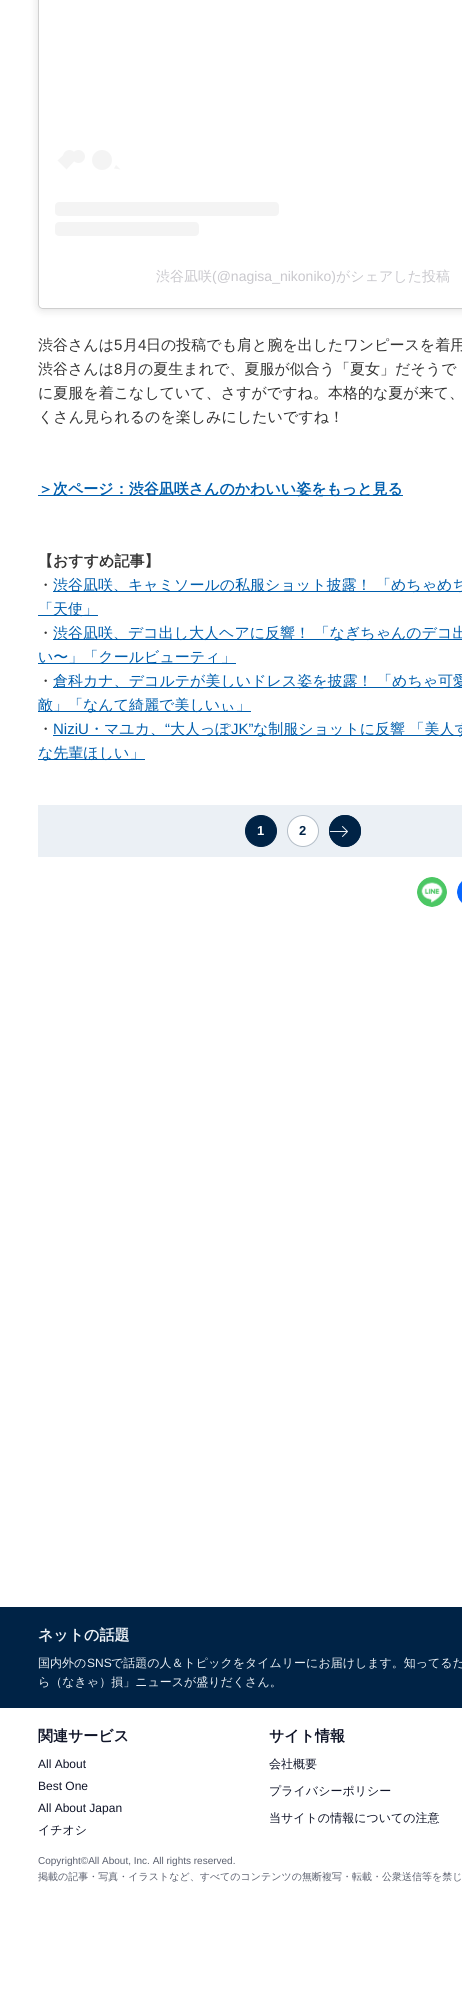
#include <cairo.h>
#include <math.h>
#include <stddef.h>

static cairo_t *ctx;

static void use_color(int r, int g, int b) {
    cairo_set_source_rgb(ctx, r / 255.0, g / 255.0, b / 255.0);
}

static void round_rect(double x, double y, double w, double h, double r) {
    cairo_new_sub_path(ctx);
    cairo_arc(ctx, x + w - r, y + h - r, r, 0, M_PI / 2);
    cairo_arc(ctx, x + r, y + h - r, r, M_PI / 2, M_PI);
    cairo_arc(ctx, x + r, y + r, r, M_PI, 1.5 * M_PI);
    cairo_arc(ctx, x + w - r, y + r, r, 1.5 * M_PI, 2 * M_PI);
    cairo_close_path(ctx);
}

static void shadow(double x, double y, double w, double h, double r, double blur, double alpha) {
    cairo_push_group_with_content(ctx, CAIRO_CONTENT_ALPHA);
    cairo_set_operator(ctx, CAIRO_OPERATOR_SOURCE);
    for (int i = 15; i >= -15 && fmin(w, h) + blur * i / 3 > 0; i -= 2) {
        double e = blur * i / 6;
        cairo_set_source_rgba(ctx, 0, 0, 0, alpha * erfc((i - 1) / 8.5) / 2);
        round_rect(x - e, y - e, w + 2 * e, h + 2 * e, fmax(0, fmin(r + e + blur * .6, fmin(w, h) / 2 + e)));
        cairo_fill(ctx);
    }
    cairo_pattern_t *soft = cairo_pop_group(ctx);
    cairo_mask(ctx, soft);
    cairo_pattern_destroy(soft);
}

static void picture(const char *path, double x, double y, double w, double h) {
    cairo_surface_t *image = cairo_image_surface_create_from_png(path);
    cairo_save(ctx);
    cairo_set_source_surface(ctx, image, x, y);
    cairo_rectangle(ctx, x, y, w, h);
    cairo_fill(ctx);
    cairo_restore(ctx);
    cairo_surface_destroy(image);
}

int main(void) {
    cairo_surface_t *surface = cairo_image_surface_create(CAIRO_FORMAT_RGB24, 462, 2012);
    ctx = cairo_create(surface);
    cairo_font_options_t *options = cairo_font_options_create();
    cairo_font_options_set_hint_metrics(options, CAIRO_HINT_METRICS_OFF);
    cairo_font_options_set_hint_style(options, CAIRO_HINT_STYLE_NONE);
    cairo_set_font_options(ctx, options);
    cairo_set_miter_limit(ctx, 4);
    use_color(255, 255, 255);
    cairo_paint(ctx);
    use_color(0, 0, 0);
    shadow(39, -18, 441, 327, 3, 5, 0.15);
    shadow(39, -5, 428, 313, 3, 0.5, 0.5);
    use_color(255, 255, 255);
    round_rect(39, -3, 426, 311, 3);
    cairo_fill(ctx);
    use_color(244, 244, 244);
    cairo_arc(ctx, 69.5, 156.5, 6.5, 0, 2 * M_PI);
    cairo_fill(ctx);
    cairo_new_path(ctx);
    cairo_move_to(ctx, 57.5, 160.5);
    cairo_line_to(ctx, 66.5, 152);
    cairo_line_to(ctx, 75, 160.5);
    cairo_line_to(ctx, 66.5, 169.5);
    cairo_close_path(ctx);
    cairo_fill(ctx);
    cairo_arc(ctx, 78.5, 156.5, 6.5, 0, 2 * M_PI);
    cairo_fill(ctx);
    cairo_arc(ctx, 102, 160, 10, 0, 2 * M_PI);
    cairo_fill(ctx);
    cairo_new_path(ctx);
    cairo_move_to(ctx, 114, 168.5);
    cairo_line_to(ctx, 116, 165);
    cairo_line_to(ctx, 120.5, 169.5);
    cairo_close_path(ctx);
    cairo_fill(ctx);
    round_rect(55, 202, 224, 14, 4);
    cairo_fill(ctx);
    round_rect(55, 222, 144, 14, 4);
    cairo_fill(ctx);
    cairo_select_font_face(ctx, "WenQuanYi Zen Hei Medium", CAIRO_FONT_SLANT_NORMAL, CAIRO_FONT_WEIGHT_NORMAL);
    cairo_set_font_size(ctx, 14);
    use_color(201, 200, 205);
    cairo_move_to(ctx, 156, 281);
    cairo_show_text(ctx, "渋谷凪咲");
    cairo_select_font_face(ctx, "Liberation Sans", CAIRO_FONT_SLANT_NORMAL, CAIRO_FONT_WEIGHT_NORMAL);
    cairo_move_to(ctx, 212, 281);
    cairo_show_text(ctx, "(@nagisa_nikoniko)");
    cairo_select_font_face(ctx, "WenQuanYi Zen Hei Medium", CAIRO_FONT_SLANT_NORMAL, CAIRO_FONT_WEIGHT_NORMAL);
    cairo_move_to(ctx, 336, 281);
    cairo_show_text(ctx, "がシェアした投稿");
    cairo_set_font_size(ctx, 15);
    use_color(51, 51, 51);
    cairo_move_to(ctx, 38, 350);
    cairo_show_text(ctx, "渋谷さんは");
    cairo_select_font_face(ctx, "Liberation Sans", CAIRO_FONT_SLANT_NORMAL, CAIRO_FONT_WEIGHT_NORMAL);
    cairo_move_to(ctx, 114, 350);
    cairo_show_text(ctx, "5");
    cairo_select_font_face(ctx, "WenQuanYi Zen Hei Medium", CAIRO_FONT_SLANT_NORMAL, CAIRO_FONT_WEIGHT_NORMAL);
    cairo_move_to(ctx, 123, 350);
    cairo_show_text(ctx, "月");
    cairo_select_font_face(ctx, "Liberation Sans", CAIRO_FONT_SLANT_NORMAL, CAIRO_FONT_WEIGHT_NORMAL);
    cairo_move_to(ctx, 138, 350);
    cairo_show_text(ctx, "4");
    cairo_select_font_face(ctx, "WenQuanYi Zen Hei Medium", CAIRO_FONT_SLANT_NORMAL, CAIRO_FONT_WEIGHT_NORMAL);
    cairo_move_to(ctx, 146, 350);
    cairo_show_text(ctx, "日の投稿でも肩と腕を出したワンピースを着用");
    cairo_move_to(ctx, 38, 374);
    cairo_show_text(ctx, "渋谷さんは");
    cairo_select_font_face(ctx, "Liberation Sans", CAIRO_FONT_SLANT_NORMAL, CAIRO_FONT_WEIGHT_NORMAL);
    cairo_move_to(ctx, 114, 374);
    cairo_show_text(ctx, "8");
    cairo_select_font_face(ctx, "WenQuanYi Zen Hei Medium", CAIRO_FONT_SLANT_NORMAL, CAIRO_FONT_WEIGHT_NORMAL);
    cairo_move_to(ctx, 123, 374);
    cairo_show_text(ctx, "月の夏生まれで、夏服が似合う「夏女」だそうで");
    cairo_move_to(ctx, 38, 398);
    cairo_show_text(ctx, "に夏服を着こなしていて、さすがですね。本格的な夏が来て、");
    cairo_move_to(ctx, 38, 422);
    cairo_show_text(ctx, "くさん見られるのを楽しみにしたいですね！");
    use_color(0, 94, 173);
    cairo_rectangle(ctx, 38, 495, 365, 1);
    cairo_fill(ctx);
    cairo_select_font_face(ctx, "WenQuanYi Zen Hei", CAIRO_FONT_SLANT_NORMAL, CAIRO_FONT_WEIGHT_BOLD);
    cairo_move_to(ctx, 38, 494);
    cairo_show_text(ctx, "＞次ページ：渋谷凪咲さんのかわいい姿をもっと見る");
    use_color(51, 51, 51);
    cairo_move_to(ctx, 38, 566);
    cairo_show_text(ctx, "【おすすめ記事】");
    cairo_select_font_face(ctx, "WenQuanYi Zen Hei Medium", CAIRO_FONT_SLANT_NORMAL, CAIRO_FONT_WEIGHT_NORMAL);
    cairo_move_to(ctx, 38, 590);
    cairo_show_text(ctx, "・");
    use_color(0, 94, 173);
    cairo_rectangle(ctx, 53, 591, 409, 1);
    cairo_fill(ctx);
    cairo_move_to(ctx, 53, 590);
    cairo_show_text(ctx, "渋谷凪咲、キャミソールの私服ショット披露！ 「めちゃめち");
    cairo_rectangle(ctx, 38, 615, 60, 1);
    cairo_fill(ctx);
    cairo_move_to(ctx, 38, 614);
    cairo_show_text(ctx, "「天使」");
    use_color(51, 51, 51);
    cairo_move_to(ctx, 38, 638);
    cairo_show_text(ctx, "・");
    use_color(0, 94, 173);
    cairo_rectangle(ctx, 53, 639, 409, 1);
    cairo_fill(ctx);
    cairo_move_to(ctx, 53, 638);
    cairo_show_text(ctx, "渋谷凪咲、デコ出し大人ヘアに反響！ 「なぎちゃんのデコ出");
    cairo_rectangle(ctx, 38, 663, 198, 1);
    cairo_fill(ctx);
    cairo_move_to(ctx, 38, 662);
    cairo_show_text(ctx, "い〜」「クールビューティ」");
    use_color(51, 51, 51);
    cairo_move_to(ctx, 38, 686);
    cairo_show_text(ctx, "・");
    use_color(0, 94, 173);
    cairo_rectangle(ctx, 53, 687, 409, 1);
    cairo_fill(ctx);
    cairo_move_to(ctx, 53, 686);
    cairo_show_text(ctx, "倉科カナ、デコルテが美しいドレス姿を披露！ 「めちゃ可愛");
    cairo_rectangle(ctx, 38, 711, 213, 1);
    cairo_fill(ctx);
    cairo_move_to(ctx, 38, 710);
    cairo_show_text(ctx, "敵」「なんて綺麗で美しいぃ」");
    use_color(51, 51, 51);
    cairo_move_to(ctx, 38, 734);
    cairo_show_text(ctx, "・");
    cairo_select_font_face(ctx, "Liberation Sans", CAIRO_FONT_SLANT_NORMAL, CAIRO_FONT_WEIGHT_NORMAL);
    use_color(0, 94, 173);
    cairo_move_to(ctx, 53, 734);
    cairo_show_text(ctx, "NiziU");
    cairo_rectangle(ctx, 53, 735, 409, 1);
    cairo_fill(ctx);
    cairo_select_font_face(ctx, "WenQuanYi Zen Hei Medium", CAIRO_FONT_SLANT_NORMAL, CAIRO_FONT_WEIGHT_NORMAL);
    cairo_move_to(ctx, 89, 734);
    cairo_show_text(ctx, "・マユカ、");
    cairo_select_font_face(ctx, "Liberation Sans", CAIRO_FONT_SLANT_NORMAL, CAIRO_FONT_WEIGHT_NORMAL);
    cairo_move_to(ctx, 165, 734);
    cairo_show_text(ctx, "“");
    cairo_select_font_face(ctx, "WenQuanYi Zen Hei Medium", CAIRO_FONT_SLANT_NORMAL, CAIRO_FONT_WEIGHT_NORMAL);
    cairo_move_to(ctx, 170, 734);
    cairo_show_text(ctx, "大人っぽ");
    cairo_select_font_face(ctx, "Liberation Sans", CAIRO_FONT_SLANT_NORMAL, CAIRO_FONT_WEIGHT_NORMAL);
    cairo_move_to(ctx, 231, 734);
    cairo_show_text(ctx, "JK”");
    cairo_select_font_face(ctx, "WenQuanYi Zen Hei Medium", CAIRO_FONT_SLANT_NORMAL, CAIRO_FONT_WEIGHT_NORMAL);
    cairo_move_to(ctx, 253, 734);
    cairo_show_text(ctx, "な制服ショットに反響 「美人す");
    cairo_rectangle(ctx, 38, 759, 107, 1);
    cairo_fill(ctx);
    cairo_move_to(ctx, 38, 758);
    cairo_show_text(ctx, "な先輩ほしい」");
    use_color(235, 240, 245);
    cairo_rectangle(ctx, 38, 805, 424, 52);
    cairo_fill(ctx);
    use_color(0, 35, 70);
    cairo_arc(ctx, 261, 831, 15.5, 0, 2 * M_PI);
    cairo_fill_preserve(ctx);
    cairo_set_line_width(ctx, 1);
    cairo_stroke(ctx);
    cairo_select_font_face(ctx, "Liberation Sans", CAIRO_FONT_SLANT_NORMAL, CAIRO_FONT_WEIGHT_BOLD);
    cairo_set_font_size(ctx, 13);
    use_color(255, 255, 255);
    cairo_move_to(ctx, 257, 835);
    cairo_show_text(ctx, "1");
    cairo_new_path(ctx);
    cairo_arc(ctx, 303, 831, 15.5, 0, 2 * M_PI);
    cairo_fill_preserve(ctx);
    use_color(180, 190, 200);
    cairo_stroke(ctx);
    use_color(0, 35, 70);
    cairo_move_to(ctx, 299, 835);
    cairo_show_text(ctx, "2");
    cairo_new_path(ctx);
    cairo_arc(ctx, 345, 831, 16, 0, 2 * M_PI);
    cairo_fill(ctx);
    cairo_new_path(ctx);
    cairo_move_to(ctx, 342.5, 826.5);
    cairo_line_to(ctx, 347.5, 831.5);
    cairo_move_to(ctx, 342.5, 836.5);
    cairo_line_to(ctx, 347.5, 831.5);
    use_color(235, 240, 245);
    cairo_set_line_cap(ctx, CAIRO_LINE_CAP_ROUND);
    cairo_stroke(ctx);
    cairo_rectangle(ctx, 329, 831, 18, 1);
    cairo_fill(ctx);
    cairo_arc(ctx, 345, 831, 15.5, 0, 2 * M_PI);
    use_color(0, 35, 70);
    cairo_set_line_cap(ctx, CAIRO_LINE_CAP_BUTT);
    cairo_stroke(ctx);
    picture("img1.png", 417, 877, 30, 30);
    picture("img2.png", 457, 881, 5, 22);
    cairo_rectangle(ctx, 0, 1607, 462, 101);
    cairo_fill(ctx);
    cairo_select_font_face(ctx, "WenQuanYi Zen Hei", CAIRO_FONT_SLANT_NORMAL, CAIRO_FONT_WEIGHT_BOLD);
    cairo_set_font_size(ctx, 15);
    use_color(235, 240, 245);
    cairo_move_to(ctx, 38, 1640);
    cairo_show_text(ctx, "ネットの話題");
    cairo_select_font_face(ctx, "WenQuanYi Zen Hei Medium", CAIRO_FONT_SLANT_NORMAL, CAIRO_FONT_WEIGHT_NORMAL);
    cairo_set_font_size(ctx, 12);
    cairo_move_to(ctx, 38, 1667);
    cairo_show_text(ctx, "国内外の");
    cairo_select_font_face(ctx, "Liberation Sans", CAIRO_FONT_SLANT_NORMAL, CAIRO_FONT_WEIGHT_NORMAL);
    cairo_move_to(ctx, 87, 1667);
    cairo_show_text(ctx, "SNS");
    cairo_select_font_face(ctx, "WenQuanYi Zen Hei Medium", CAIRO_FONT_SLANT_NORMAL, CAIRO_FONT_WEIGHT_NORMAL);
    cairo_move_to(ctx, 111, 1667);
    cairo_show_text(ctx, "で話題の人＆トピックをタイムリーにお届けします。知ってるだ");
    cairo_move_to(ctx, 38, 1686);
    cairo_show_text(ctx, "ら（なきゃ）損」ニュースが盛りだくさん。");
    cairo_select_font_face(ctx, "WenQuanYi Zen Hei", CAIRO_FONT_SLANT_NORMAL, CAIRO_FONT_WEIGHT_BOLD);
    cairo_set_font_size(ctx, 15);
    use_color(15, 20, 40);
    cairo_move_to(ctx, 38, 1741);
    cairo_show_text(ctx, "関連サービス");
    cairo_select_font_face(ctx, "Liberation Sans", CAIRO_FONT_SLANT_NORMAL, CAIRO_FONT_WEIGHT_NORMAL);
    cairo_set_font_size(ctx, 12);
    cairo_move_to(ctx, 38, 1768);
    cairo_show_text(ctx, "All About");
    cairo_move_to(ctx, 38, 1790);
    cairo_show_text(ctx, "Best One");
    cairo_move_to(ctx, 38, 1812);
    cairo_show_text(ctx, "All About Japan");
    cairo_select_font_face(ctx, "WenQuanYi Zen Hei Medium", CAIRO_FONT_SLANT_NORMAL, CAIRO_FONT_WEIGHT_NORMAL);
    cairo_move_to(ctx, 38, 1834);
    cairo_show_text(ctx, "イチオシ");
    cairo_select_font_face(ctx, "WenQuanYi Zen Hei", CAIRO_FONT_SLANT_NORMAL, CAIRO_FONT_WEIGHT_BOLD);
    cairo_set_font_size(ctx, 15);
    cairo_move_to(ctx, 269, 1741);
    cairo_show_text(ctx, "サイト情報");
    cairo_select_font_face(ctx, "WenQuanYi Zen Hei Medium", CAIRO_FONT_SLANT_NORMAL, CAIRO_FONT_WEIGHT_NORMAL);
    cairo_set_font_size(ctx, 12);
    cairo_move_to(ctx, 269, 1768);
    cairo_show_text(ctx, "会社概要");
    cairo_move_to(ctx, 269, 1795);
    cairo_show_text(ctx, "プライバシーポリシー");
    cairo_move_to(ctx, 269, 1822);
    cairo_show_text(ctx, "当サイトの情報についての注意");
    cairo_select_font_face(ctx, "Liberation Sans", CAIRO_FONT_SLANT_NORMAL, CAIRO_FONT_WEIGHT_NORMAL);
    cairo_set_font_size(ctx, 10);
    use_color(90, 95, 110);
    cairo_move_to(ctx, 38, 1864);
    cairo_show_text(ctx, "Copyright©All About, Inc. All rights reserved.");
    cairo_select_font_face(ctx, "WenQuanYi Zen Hei Medium", CAIRO_FONT_SLANT_NORMAL, CAIRO_FONT_WEIGHT_NORMAL);
    cairo_move_to(ctx, 38, 1880);
    cairo_show_text(ctx, "掲載の記事・写真・イラストなど、すべてのコンテンツの無断複写・転載・公衆送信等を禁じ");
    cairo_surface_write_to_png(surface, "result.png");
    cairo_font_options_destroy(options);
    cairo_destroy(ctx);
    cairo_surface_destroy(surface);
    return 0;
}
